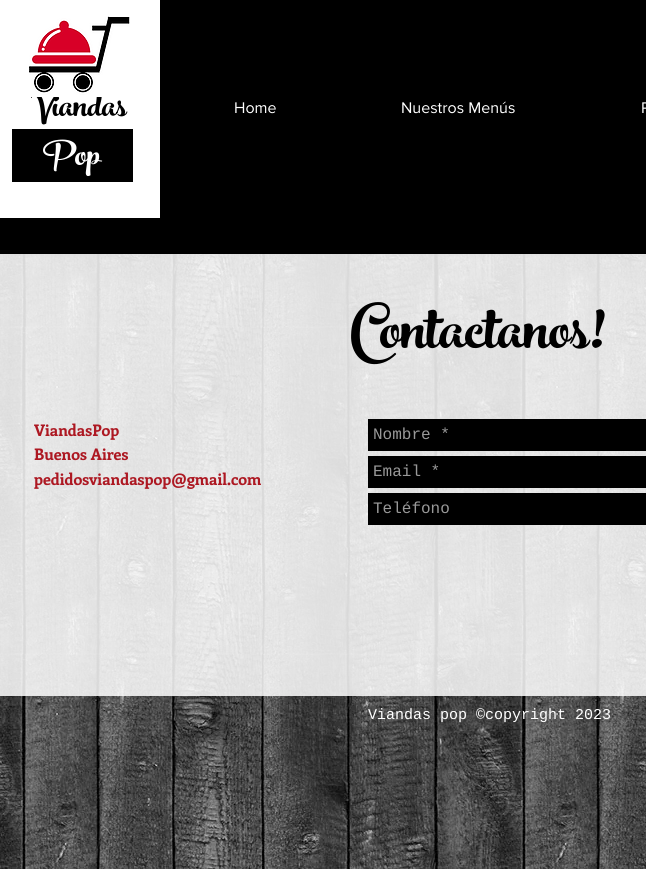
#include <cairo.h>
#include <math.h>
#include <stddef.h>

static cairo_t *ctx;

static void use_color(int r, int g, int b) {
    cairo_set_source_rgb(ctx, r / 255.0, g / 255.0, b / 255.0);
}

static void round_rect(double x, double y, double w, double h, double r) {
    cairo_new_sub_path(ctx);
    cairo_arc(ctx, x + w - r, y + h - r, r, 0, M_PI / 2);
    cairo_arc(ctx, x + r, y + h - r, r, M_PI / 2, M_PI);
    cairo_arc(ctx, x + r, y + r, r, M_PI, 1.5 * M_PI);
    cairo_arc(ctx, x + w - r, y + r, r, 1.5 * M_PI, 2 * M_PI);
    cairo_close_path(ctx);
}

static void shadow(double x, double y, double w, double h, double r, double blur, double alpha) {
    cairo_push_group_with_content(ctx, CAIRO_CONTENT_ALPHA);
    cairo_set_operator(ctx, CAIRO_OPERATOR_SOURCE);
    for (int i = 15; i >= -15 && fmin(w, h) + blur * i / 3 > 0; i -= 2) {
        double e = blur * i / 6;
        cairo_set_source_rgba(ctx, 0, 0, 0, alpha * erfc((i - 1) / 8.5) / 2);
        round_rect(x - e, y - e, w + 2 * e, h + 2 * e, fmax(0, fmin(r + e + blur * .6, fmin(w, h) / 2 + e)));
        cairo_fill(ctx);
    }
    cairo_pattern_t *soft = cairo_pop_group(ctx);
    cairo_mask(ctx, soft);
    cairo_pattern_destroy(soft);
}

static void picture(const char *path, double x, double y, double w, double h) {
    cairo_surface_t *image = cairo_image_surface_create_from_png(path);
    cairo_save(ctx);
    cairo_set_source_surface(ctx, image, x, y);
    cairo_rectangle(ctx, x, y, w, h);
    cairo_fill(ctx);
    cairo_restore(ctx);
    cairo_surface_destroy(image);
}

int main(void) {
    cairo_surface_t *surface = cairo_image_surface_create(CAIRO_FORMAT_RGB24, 646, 869);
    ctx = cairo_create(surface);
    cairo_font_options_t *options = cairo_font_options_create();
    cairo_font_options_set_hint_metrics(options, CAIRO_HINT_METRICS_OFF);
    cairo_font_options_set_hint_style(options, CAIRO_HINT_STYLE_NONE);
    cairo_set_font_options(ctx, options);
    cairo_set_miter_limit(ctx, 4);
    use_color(255, 255, 255);
    cairo_paint(ctx);
    picture("img2.png", 0, 254, 646, 615);
    use_color(0, 0, 0);
    shadow(0, 0, 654, 254, 0, 2.5, 0.7);
    use_color(0, 0, 0);
    cairo_rectangle(ctx, 0, 0, 646, 254);
    cairo_fill(ctx);
    use_color(255, 255, 255);
    cairo_rectangle(ctx, 0, 0, 160, 218);
    cairo_fill(ctx);
    cairo_select_font_face(ctx, "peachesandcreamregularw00", CAIRO_FONT_SLANT_NORMAL, CAIRO_FONT_WEIGHT_NORMAL);
    cairo_set_font_size(ctx, 50);
    use_color(0, 0, 0);
    cairo_move_to(ctx, 31, 116);
    cairo_show_text(ctx, "Viandas");
    picture("img1.png", 29, 16, 101, 81);
    cairo_rectangle(ctx, 12, 129, 121, 53);
    cairo_fill(ctx);
    use_color(255, 255, 255);
    cairo_move_to(ctx, 43, 165);
    cairo_show_text(ctx, "Pop");
    cairo_select_font_face(ctx, "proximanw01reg", CAIRO_FONT_SLANT_NORMAL, CAIRO_FONT_WEIGHT_NORMAL);
    cairo_set_font_size(ctx, 16);
    cairo_move_to(ctx, 234, 113);
    cairo_show_text(ctx, "Home");
    cairo_move_to(ctx, 401, 113);
    cairo_show_text(ctx, "Nuestros Menús");
    cairo_move_to(ctx, 641, 113);
    cairo_show_text(ctx, "P");
    cairo_set_source_rgba(ctx, 1, 1, 1, 0.85);
    cairo_rectangle(ctx, 0, 254, 646, 442);
    cairo_fill(ctx);
    cairo_select_font_face(ctx, "peachesandcreamregularw00", CAIRO_FONT_SLANT_NORMAL, CAIRO_FONT_WEIGHT_NORMAL);
    cairo_set_font_size(ctx, 90);
    use_color(0, 0, 0);
    cairo_move_to(ctx, 351, 348);
    cairo_show_text(ctx, "Contactanos!");
    cairo_select_font_face(ctx, "Enriqueta", CAIRO_FONT_SLANT_NORMAL, CAIRO_FONT_WEIGHT_BOLD);
    cairo_set_font_size(ctx, 16);
    use_color(173, 24, 34);
    cairo_move_to(ctx, 34, 436);
    cairo_show_text(ctx, "ViandasPop");
    cairo_move_to(ctx, 34, 460);
    cairo_show_text(ctx, "Buenos Aires");
    cairo_move_to(ctx, 34, 485);
    cairo_show_text(ctx, "pedidosviandaspop@gmail.com");
    use_color(0, 0, 0);
    cairo_rectangle(ctx, 368, 419, 278, 32);
    cairo_fill(ctx);
    cairo_select_font_face(ctx, "Liberation Mono", CAIRO_FONT_SLANT_NORMAL, CAIRO_FONT_WEIGHT_NORMAL);
    use_color(153, 153, 153);
    cairo_move_to(ctx, 373, 439);
    cairo_show_text(ctx, "Nombre *");
    use_color(0, 0, 0);
    cairo_rectangle(ctx, 368, 456, 278, 32);
    cairo_fill(ctx);
    use_color(153, 153, 153);
    cairo_move_to(ctx, 373, 476);
    cairo_show_text(ctx, "Email *");
    use_color(0, 0, 0);
    cairo_rectangle(ctx, 368, 493, 278, 32);
    cairo_fill(ctx);
    use_color(153, 153, 153);
    cairo_move_to(ctx, 373, 513);
    cairo_show_text(ctx, "Teléfono");
    cairo_set_font_size(ctx, 15);
    use_color(255, 255, 255);
    cairo_move_to(ctx, 368, 719);
    cairo_show_text(ctx, "Viandas pop ©copyright 2023");
    cairo_surface_write_to_png(surface, "result.png");
    cairo_font_options_destroy(options);
    cairo_destroy(ctx);
    cairo_surface_destroy(surface);
    return 0;
}
